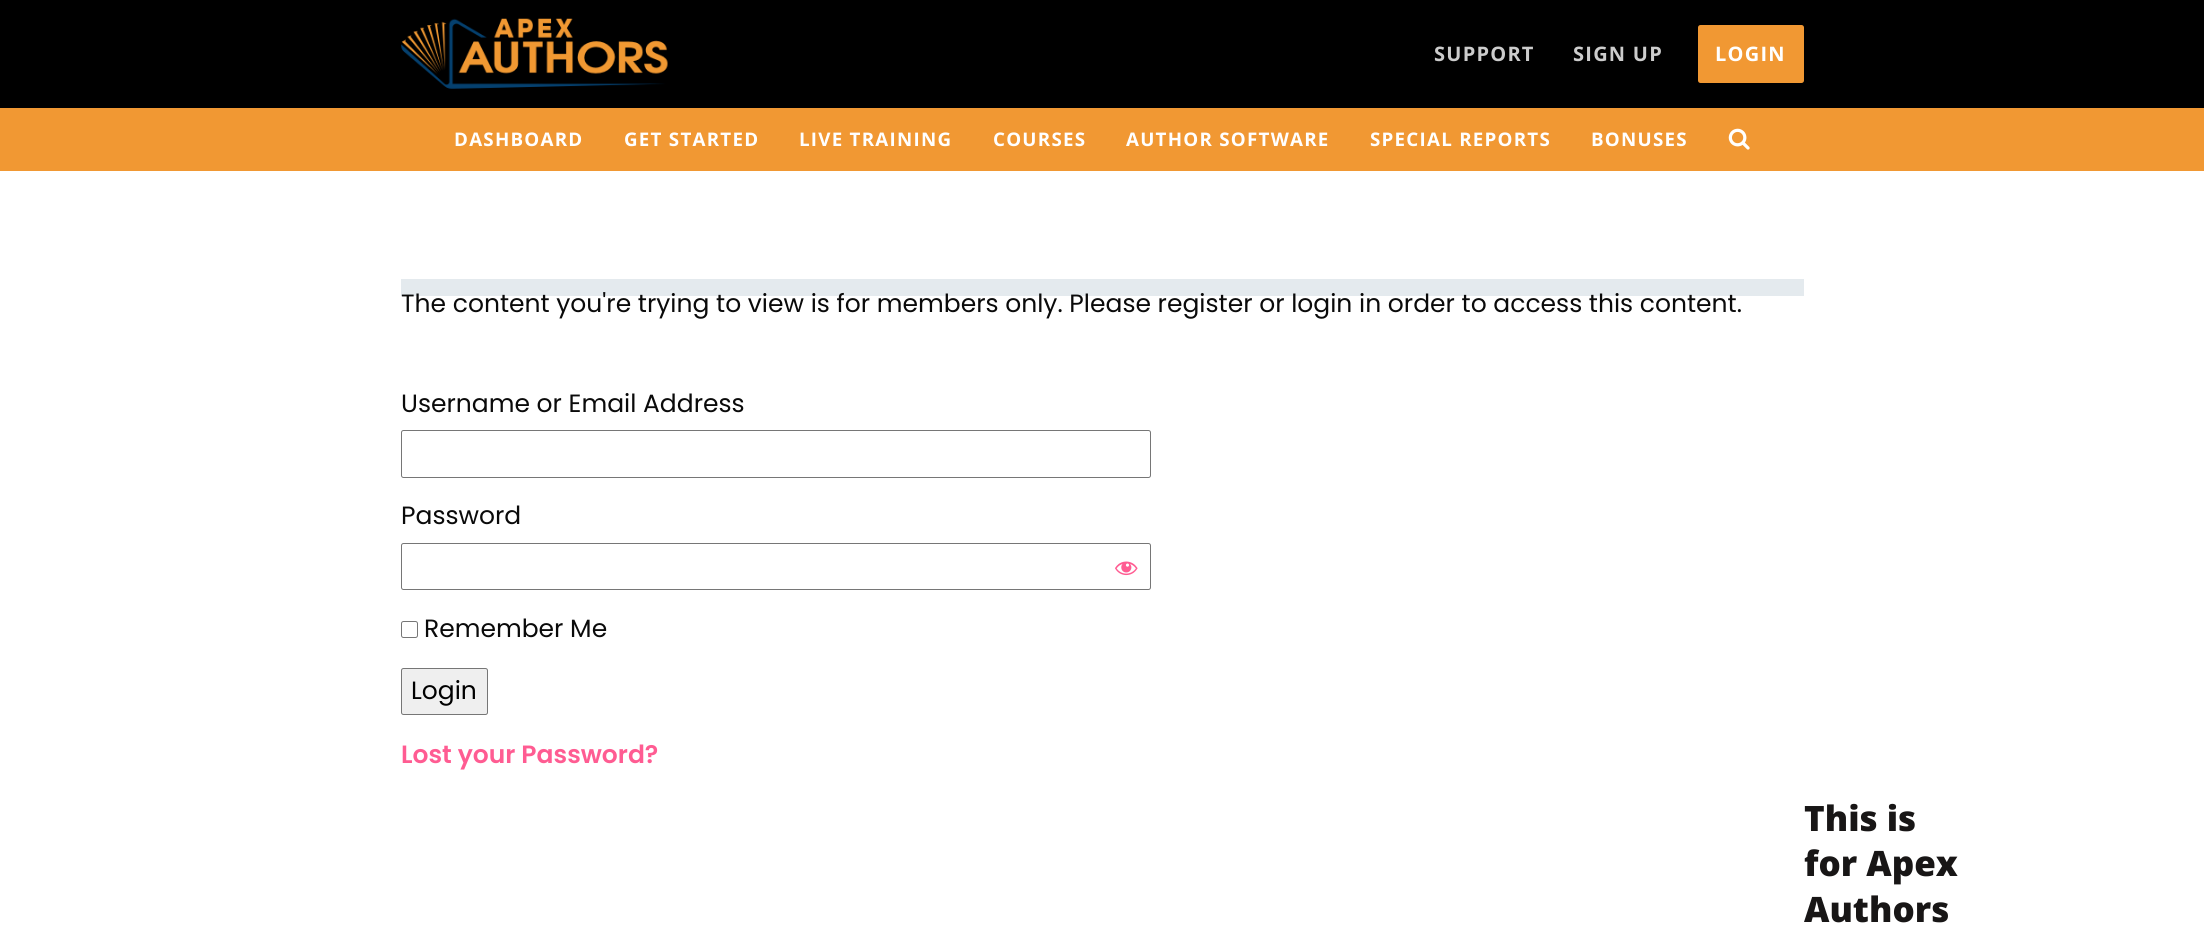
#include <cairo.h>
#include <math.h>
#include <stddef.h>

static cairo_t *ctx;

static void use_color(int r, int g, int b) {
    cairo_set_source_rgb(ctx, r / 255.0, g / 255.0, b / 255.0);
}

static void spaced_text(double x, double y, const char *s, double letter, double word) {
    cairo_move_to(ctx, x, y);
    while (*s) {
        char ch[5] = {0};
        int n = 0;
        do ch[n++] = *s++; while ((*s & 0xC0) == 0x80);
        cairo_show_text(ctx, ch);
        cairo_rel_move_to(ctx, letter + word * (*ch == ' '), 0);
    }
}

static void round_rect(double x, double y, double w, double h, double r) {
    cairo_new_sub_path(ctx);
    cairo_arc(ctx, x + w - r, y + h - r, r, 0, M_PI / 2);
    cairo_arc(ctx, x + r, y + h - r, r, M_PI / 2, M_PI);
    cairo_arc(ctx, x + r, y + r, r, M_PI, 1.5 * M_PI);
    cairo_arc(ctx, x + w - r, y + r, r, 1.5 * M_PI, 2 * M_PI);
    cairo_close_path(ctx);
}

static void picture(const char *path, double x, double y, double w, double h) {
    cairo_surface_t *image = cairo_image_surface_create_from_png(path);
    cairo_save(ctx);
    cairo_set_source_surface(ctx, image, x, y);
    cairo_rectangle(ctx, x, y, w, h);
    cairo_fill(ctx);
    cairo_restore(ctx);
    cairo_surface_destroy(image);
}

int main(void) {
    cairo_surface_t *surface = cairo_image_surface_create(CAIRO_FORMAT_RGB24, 2204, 943);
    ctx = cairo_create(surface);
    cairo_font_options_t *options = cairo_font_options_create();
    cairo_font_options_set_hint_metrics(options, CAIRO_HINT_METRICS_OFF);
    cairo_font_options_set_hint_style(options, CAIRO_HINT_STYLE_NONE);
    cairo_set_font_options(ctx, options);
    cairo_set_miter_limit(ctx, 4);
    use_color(255, 255, 255);
    cairo_paint(ctx);
    use_color(0, 0, 0);
    cairo_rectangle(ctx, 0, 0, 2204, 108);
    cairo_fill(ctx);
    picture("img1.png", 401, 18, 267, 71);
    cairo_select_font_face(ctx, "Open Sans", CAIRO_FONT_SLANT_NORMAL, CAIRO_FONT_WEIGHT_BOLD);
    cairo_set_font_size(ctx, 20);
    use_color(204, 204, 204);
    spaced_text(1434, 61, "SUPPORT", 1.25, 0);
    spaced_text(1573, 61, "SIGN UP", 1.25, 0);
    use_color(241, 152, 51);
    round_rect(1698, 25, 106, 58, 2.5);
    cairo_fill(ctx);
    use_color(255, 255, 255);
    spaced_text(1715, 61, "LOGIN", 1.25, 0);
    use_color(241, 152, 51);
    cairo_rectangle(ctx, 0, 108, 2204, 63);
    cairo_fill(ctx);
    cairo_set_font_size(ctx, 18.75);
    use_color(255, 255, 255);
    spaced_text(454, 146, "DASHBOARD", 1.25, 0);
    spaced_text(624, 146, "GET STARTED", 1.25, 0);
    spaced_text(799, 146, "LIVE TRAINING", 1.25, 0);
    spaced_text(993, 146, "COURSES", 1.25, 0);
    spaced_text(1126, 146, "AUTHOR SOFTWARE", 1.25, 0);
    spaced_text(1370, 146, "SPECIAL REPORTS", 1.25, 0);
    spaced_text(1591, 146, "BONUSES", 1.25, 0);
    picture("img2.png", 1728, 128, 22, 22);
    use_color(228, 234, 238);
    cairo_rectangle(ctx, 401, 279, 1403, 17);
    cairo_fill(ctx);
    cairo_select_font_face(ctx, "Poppins", CAIRO_FONT_SLANT_NORMAL, CAIRO_FONT_WEIGHT_NORMAL);
    cairo_set_font_size(ctx, 25);
    use_color(10, 10, 10);
    cairo_move_to(ctx, 401, 312);
    cairo_show_text(ctx, "The content you're trying to view is for members only. Please register or login in order to access this content.");
    cairo_move_to(ctx, 401, 412);
    cairo_show_text(ctx, "Username or Email Address");
    round_rect(401.5, 430.5, 749, 47, 2);
    use_color(118, 118, 118);
    cairo_set_line_width(ctx, 1);
    cairo_stroke(ctx);
    use_color(10, 10, 10);
    cairo_move_to(ctx, 401, 524);
    cairo_show_text(ctx, "Password");
    round_rect(401.5, 543.5, 749, 46, 2);
    use_color(118, 118, 118);
    cairo_stroke(ctx);
    picture("img3.png", 1115, 561, 23, 15);
    round_rect(401.5, 621.5, 16, 16, 2);
    cairo_stroke(ctx);
    use_color(10, 10, 10);
    cairo_move_to(ctx, 424, 637);
    cairo_show_text(ctx, "Remember Me");
    use_color(239, 239, 239);
    round_rect(401.5, 668.5, 86, 46, 2);
    cairo_fill_preserve(ctx);
    use_color(118, 118, 118);
    cairo_stroke(ctx);
    use_color(0, 0, 0);
    cairo_move_to(ctx, 411, 699);
    cairo_show_text(ctx, "Login");
    cairo_select_font_face(ctx, "Poppins SemiBold", CAIRO_FONT_SLANT_NORMAL, CAIRO_FONT_WEIGHT_NORMAL);
    use_color(255, 92, 146);
    cairo_move_to(ctx, 401, 763);
    cairo_show_text(ctx, "Lost your Password?");
    cairo_select_font_face(ctx, "Open Sans ExtraBold", CAIRO_FONT_SLANT_NORMAL, CAIRO_FONT_WEIGHT_NORMAL);
    cairo_set_font_size(ctx, 35);
    use_color(24, 22, 22);
    cairo_move_to(ctx, 1804, 831);
    cairo_show_text(ctx, "This is");
    cairo_move_to(ctx, 1804, 876);
    cairo_show_text(ctx, "for Apex");
    cairo_move_to(ctx, 1804, 922);
    cairo_show_text(ctx, "Authors");
    cairo_surface_write_to_png(surface, "result.png");
    cairo_font_options_destroy(options);
    cairo_destroy(ctx);
    cairo_surface_destroy(surface);
    return 0;
}
